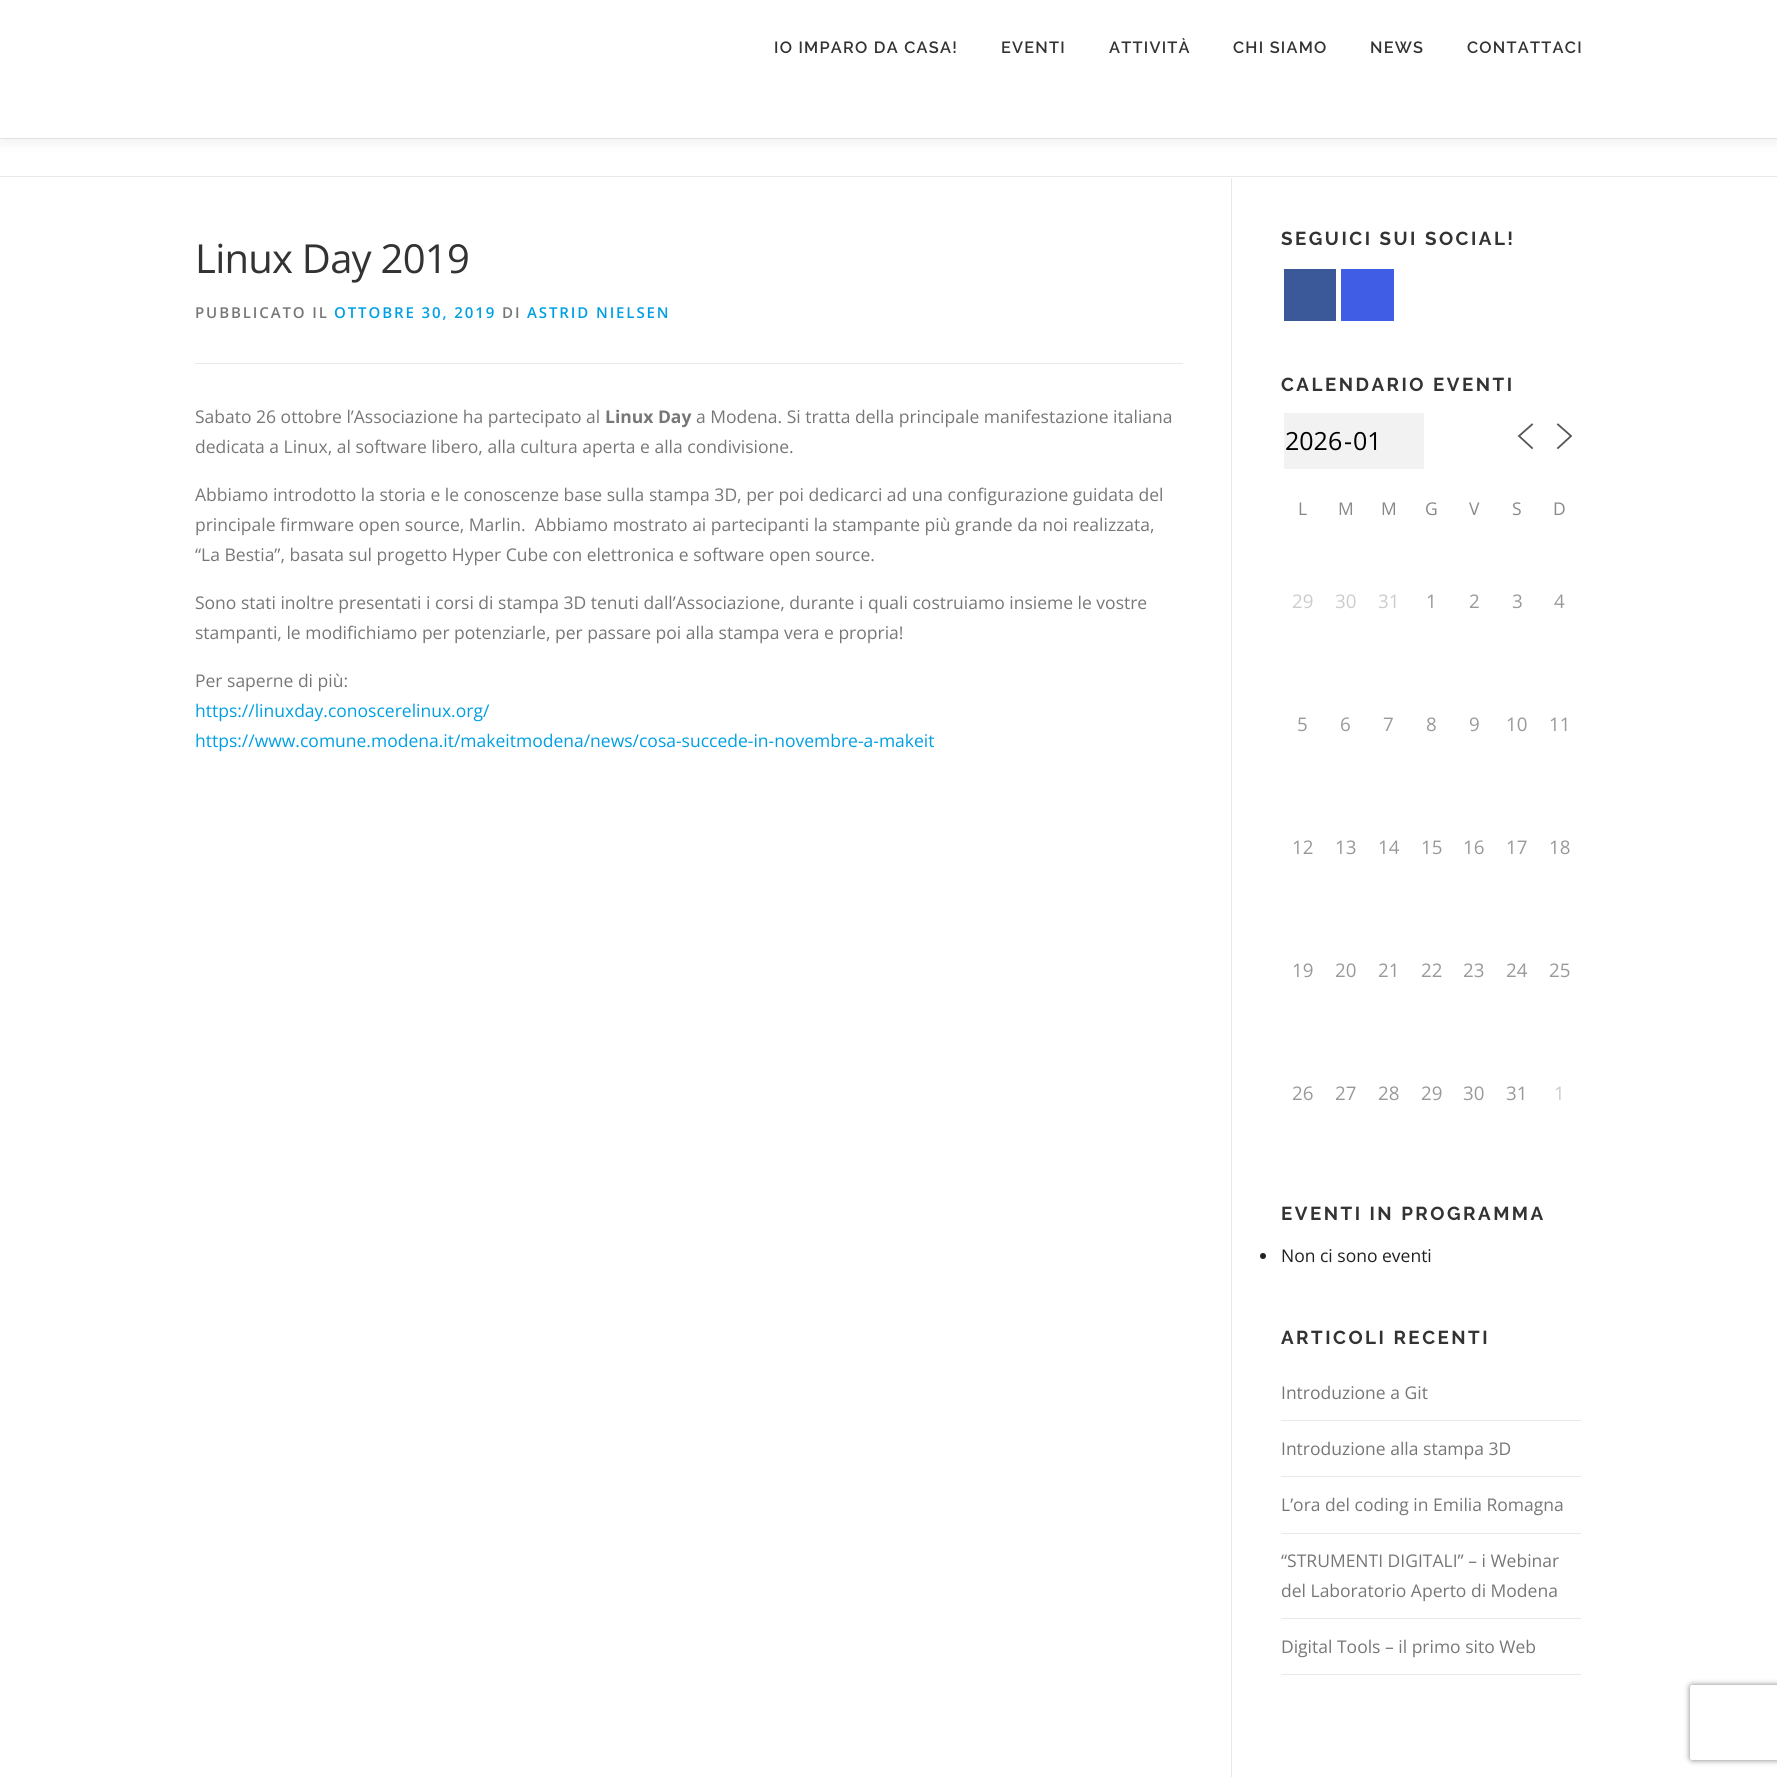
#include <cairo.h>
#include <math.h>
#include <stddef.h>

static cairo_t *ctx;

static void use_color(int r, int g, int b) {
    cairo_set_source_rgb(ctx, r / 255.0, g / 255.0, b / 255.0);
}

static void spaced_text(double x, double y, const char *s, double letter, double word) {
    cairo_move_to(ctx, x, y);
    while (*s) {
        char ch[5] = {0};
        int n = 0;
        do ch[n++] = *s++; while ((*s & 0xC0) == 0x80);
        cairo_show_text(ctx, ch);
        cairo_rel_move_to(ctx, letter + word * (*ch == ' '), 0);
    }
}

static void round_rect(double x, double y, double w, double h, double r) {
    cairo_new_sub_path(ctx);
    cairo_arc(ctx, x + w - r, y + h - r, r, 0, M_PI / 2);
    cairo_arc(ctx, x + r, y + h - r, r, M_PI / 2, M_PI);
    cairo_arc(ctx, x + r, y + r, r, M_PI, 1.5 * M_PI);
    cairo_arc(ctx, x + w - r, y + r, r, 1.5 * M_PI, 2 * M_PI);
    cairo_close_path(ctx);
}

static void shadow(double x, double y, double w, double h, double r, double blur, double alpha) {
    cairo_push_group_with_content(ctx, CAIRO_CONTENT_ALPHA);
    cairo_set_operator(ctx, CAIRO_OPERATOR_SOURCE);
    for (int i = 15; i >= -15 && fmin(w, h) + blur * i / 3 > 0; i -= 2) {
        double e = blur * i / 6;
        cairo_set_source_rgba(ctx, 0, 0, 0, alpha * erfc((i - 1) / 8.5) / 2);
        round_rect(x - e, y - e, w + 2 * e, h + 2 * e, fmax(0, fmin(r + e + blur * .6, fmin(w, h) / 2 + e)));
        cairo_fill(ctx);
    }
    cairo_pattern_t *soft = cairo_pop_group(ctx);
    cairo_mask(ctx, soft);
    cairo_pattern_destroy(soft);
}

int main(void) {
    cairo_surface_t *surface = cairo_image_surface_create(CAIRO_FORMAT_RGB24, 1777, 1777);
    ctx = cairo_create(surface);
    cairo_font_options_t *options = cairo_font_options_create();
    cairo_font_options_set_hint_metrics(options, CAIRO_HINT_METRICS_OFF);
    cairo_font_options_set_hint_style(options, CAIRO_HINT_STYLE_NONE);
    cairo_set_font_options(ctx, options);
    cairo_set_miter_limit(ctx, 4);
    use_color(255, 255, 255);
    cairo_paint(ctx);
    use_color(233, 233, 233);
    cairo_rectangle(ctx, 0, 138, 1777, 1);
    cairo_fill(ctx);
    use_color(50, 50, 50);
    shadow(0, 6, 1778, 138, 0, 6, 0.06);
    use_color(255, 255, 255);
    cairo_rectangle(ctx, 0, 1, 1777, 137);
    cairo_fill(ctx);
    cairo_select_font_face(ctx, "Raleway SemiBold", CAIRO_FONT_SLANT_NORMAL, CAIRO_FONT_WEIGHT_NORMAL);
    cairo_set_font_size(ctx, 16.25);
    use_color(51, 51, 51);
    spaced_text(774, 53, "IO IMPARO DA CASA!", 1.25, 0);
    spaced_text(1001, 53, "EVENTI", 1.25, 0);
    spaced_text(1109, 53, "ATTIVITÀ", 1.25, 0);
    spaced_text(1233, 53, "CHI SIAMO", 1.25, 0);
    spaced_text(1370, 53, "NEWS", 1.25, 0);
    spaced_text(1467, 53, "CONTATTACI", 1.25, 0);
    use_color(233, 233, 233);
    cairo_rectangle(ctx, 0, 176, 1777, 1);
    cairo_fill(ctx);
    cairo_rectangle(ctx, 1231, 178, 1, 1599);
    cairo_fill(ctx);
    cairo_select_font_face(ctx, "Open Sans", CAIRO_FONT_SLANT_NORMAL, CAIRO_FONT_WEIGHT_NORMAL);
    cairo_set_font_size(ctx, 40);
    use_color(51, 51, 51);
    spaced_text(195, 273, "Linux Day 2019", -0.75, 0);
    use_color(233, 233, 233);
    cairo_rectangle(ctx, 195, 363, 988, 1);
    cairo_fill(ctx);
    cairo_select_font_face(ctx, "Open Sans SemiBold", CAIRO_FONT_SLANT_NORMAL, CAIRO_FONT_WEIGHT_NORMAL);
    cairo_set_font_size(ctx, 15);
    use_color(119, 119, 119);
    spaced_text(195, 318, "PUBBLICATO IL", 1.9, 0);
    use_color(0, 159, 227);
    spaced_text(334, 318, "OTTOBRE 30, 2019", 1.9, 0);
    use_color(119, 119, 119);
    spaced_text(502, 318, "DI", 1.9, 0);
    use_color(0, 159, 227);
    spaced_text(527, 318, "ASTRID NIELSEN", 1.9, 0);
    cairo_select_font_face(ctx, "Open Sans", CAIRO_FONT_SLANT_NORMAL, CAIRO_FONT_WEIGHT_NORMAL);
    cairo_set_font_size(ctx, 17.5);
    use_color(119, 119, 119);
    cairo_move_to(ctx, 195, 423);
    cairo_show_text(ctx, "Sabato 26 ottobre l’Associazione ha partecipato al");
    cairo_select_font_face(ctx, "Open Sans", CAIRO_FONT_SLANT_NORMAL, CAIRO_FONT_WEIGHT_BOLD);
    cairo_move_to(ctx, 605, 423);
    cairo_show_text(ctx, "Linux Day");
    cairo_select_font_face(ctx, "Open Sans", CAIRO_FONT_SLANT_NORMAL, CAIRO_FONT_WEIGHT_NORMAL);
    cairo_move_to(ctx, 696, 423);
    cairo_show_text(ctx, "a Modena. Si tratta della principale manifestazione italiana");
    cairo_move_to(ctx, 195, 453);
    cairo_show_text(ctx, "dedicata a Linux, al software libero, alla cultura aperta e alla condivisione.");
    cairo_move_to(ctx, 195, 501);
    cairo_show_text(ctx, "Abbiamo introdotto la storia e le conoscenze base sulla stampa 3D, per poi dedicarci ad una configurazione guidata del");
    cairo_move_to(ctx, 195, 531);
    cairo_show_text(ctx, "principale firmware open source, Marlin.  Abbiamo mostrato ai partecipanti la stampante più grande da noi realizzata,");
    cairo_move_to(ctx, 195, 561);
    cairo_show_text(ctx, "“La Bestia”, basata sul progetto Hyper Cube con elettronica e software open source.");
    cairo_move_to(ctx, 195, 609);
    cairo_show_text(ctx, "Sono stati inoltre presentati i corsi di stampa 3D tenuti dall’Associazione, durante i quali costruiamo insieme le vostre");
    cairo_move_to(ctx, 195, 639);
    cairo_show_text(ctx, "stampanti, le modifichiamo per potenziarle, per passare poi alla stampa vera e propria!");
    cairo_move_to(ctx, 195, 687);
    cairo_show_text(ctx, "Per saperne di più:");
    use_color(0, 159, 227);
    cairo_move_to(ctx, 195, 717);
    cairo_show_text(ctx, "https://linuxday.conoscerelinux.org/");
    cairo_move_to(ctx, 195, 747);
    cairo_show_text(ctx, "https://www.comune.modena.it/makeitmodena/news/cosa-succede-in-novembre-a-makeit");
    cairo_select_font_face(ctx, "Raleway", CAIRO_FONT_SLANT_NORMAL, CAIRO_FONT_WEIGHT_BOLD);
    cairo_set_font_size(ctx, 18.75);
    use_color(51, 51, 51);
    spaced_text(1281, 245, "SEGUICI SUI SOCIAL!", 2.5, 0);
    use_color(59, 89, 152);
    cairo_rectangle(ctx, 1284, 269, 52, 52);
    cairo_fill(ctx);
    use_color(64, 93, 230);
    cairo_rectangle(ctx, 1341, 269, 53, 52);
    cairo_fill(ctx);
    use_color(51, 51, 51);
    spaced_text(1281, 391, "CALENDARIO EVENTI", 2.5, 0);
    use_color(242, 242, 242);
    cairo_rectangle(ctx, 1284, 413, 140, 56);
    cairo_fill(ctx);
    cairo_select_font_face(ctx, "Open Sans", CAIRO_FONT_SLANT_NORMAL, CAIRO_FONT_WEIGHT_NORMAL);
    cairo_set_font_size(ctx, 25);
    use_color(0, 0, 0);
    cairo_move_to(ctx, 1285, 450);
    cairo_show_text(ctx, "2026");
    cairo_move_to(ctx, 1344, 450);
    cairo_show_text(ctx, "-");
    cairo_move_to(ctx, 1353, 450);
    cairo_show_text(ctx, "01");
    cairo_new_path(ctx);
    cairo_move_to(ctx, 1532, 448);
    cairo_line_to(ctx, 1519, 436);
    cairo_line_to(ctx, 1532, 424.5);
    cairo_move_to(ctx, 1558, 448);
    cairo_line_to(ctx, 1571, 436);
    cairo_line_to(ctx, 1558, 424.5);
    use_color(85, 85, 85);
    cairo_set_line_width(ctx, 1.8);
    cairo_set_line_cap(ctx, CAIRO_LINE_CAP_SQUARE);
    cairo_stroke(ctx);
    cairo_set_font_size(ctx, 17.5);
    use_color(136, 136, 136);
    cairo_move_to(ctx, 1298, 515);
    cairo_show_text(ctx, "L");
    cairo_move_to(ctx, 1338, 515);
    cairo_show_text(ctx, "M");
    cairo_move_to(ctx, 1381, 515);
    cairo_show_text(ctx, "M");
    cairo_move_to(ctx, 1425, 515);
    cairo_show_text(ctx, "G");
    cairo_move_to(ctx, 1469, 515);
    cairo_show_text(ctx, "V");
    cairo_move_to(ctx, 1512, 515);
    cairo_show_text(ctx, "S");
    cairo_move_to(ctx, 1553, 515);
    cairo_show_text(ctx, "D");
    cairo_set_font_size(ctx, 18.75);
    use_color(204, 204, 204);
    cairo_move_to(ctx, 1292, 608);
    cairo_show_text(ctx, "29");
    cairo_move_to(ctx, 1335, 608);
    cairo_show_text(ctx, "30");
    cairo_move_to(ctx, 1378, 608);
    cairo_show_text(ctx, "31");
    use_color(153, 153, 153);
    cairo_move_to(ctx, 1426, 608);
    cairo_show_text(ctx, "1");
    cairo_move_to(ctx, 1469, 608);
    cairo_show_text(ctx, "2");
    cairo_move_to(ctx, 1512, 608);
    cairo_show_text(ctx, "3");
    cairo_move_to(ctx, 1554, 608);
    cairo_show_text(ctx, "4");
    cairo_move_to(ctx, 1297, 731);
    cairo_show_text(ctx, "5");
    cairo_move_to(ctx, 1340, 731);
    cairo_show_text(ctx, "6");
    cairo_move_to(ctx, 1383, 731);
    cairo_show_text(ctx, "7");
    cairo_move_to(ctx, 1426, 731);
    cairo_show_text(ctx, "8");
    cairo_move_to(ctx, 1469, 731);
    cairo_show_text(ctx, "9");
    cairo_move_to(ctx, 1506, 731);
    cairo_show_text(ctx, "10");
    cairo_move_to(ctx, 1549, 731);
    cairo_show_text(ctx, "11");
    cairo_move_to(ctx, 1292, 854);
    cairo_show_text(ctx, "12");
    cairo_move_to(ctx, 1335, 854);
    cairo_show_text(ctx, "13");
    cairo_move_to(ctx, 1378, 854);
    cairo_show_text(ctx, "14");
    cairo_move_to(ctx, 1421, 854);
    cairo_show_text(ctx, "15");
    cairo_move_to(ctx, 1463, 854);
    cairo_show_text(ctx, "16");
    cairo_move_to(ctx, 1506, 854);
    cairo_show_text(ctx, "17");
    cairo_move_to(ctx, 1549, 854);
    cairo_show_text(ctx, "18");
    cairo_move_to(ctx, 1292, 977);
    cairo_show_text(ctx, "19");
    cairo_move_to(ctx, 1335, 977);
    cairo_show_text(ctx, "20");
    cairo_move_to(ctx, 1378, 977);
    cairo_show_text(ctx, "21");
    cairo_move_to(ctx, 1421, 977);
    cairo_show_text(ctx, "22");
    cairo_move_to(ctx, 1463, 977);
    cairo_show_text(ctx, "23");
    cairo_move_to(ctx, 1506, 977);
    cairo_show_text(ctx, "24");
    cairo_move_to(ctx, 1549, 977);
    cairo_show_text(ctx, "25");
    cairo_move_to(ctx, 1292, 1100);
    cairo_show_text(ctx, "26");
    cairo_move_to(ctx, 1335, 1100);
    cairo_show_text(ctx, "27");
    cairo_move_to(ctx, 1378, 1100);
    cairo_show_text(ctx, "28");
    cairo_move_to(ctx, 1421, 1100);
    cairo_show_text(ctx, "29");
    cairo_move_to(ctx, 1463, 1100);
    cairo_show_text(ctx, "30");
    cairo_move_to(ctx, 1506, 1100);
    cairo_show_text(ctx, "31");
    use_color(204, 204, 204);
    cairo_move_to(ctx, 1554, 1100);
    cairo_show_text(ctx, "1");
    cairo_select_font_face(ctx, "Raleway", CAIRO_FONT_SLANT_NORMAL, CAIRO_FONT_WEIGHT_BOLD);
    use_color(51, 51, 51);
    spaced_text(1281, 1220, "EVENTI IN PROGRAMMA", 2.5, 0);
    use_color(33, 33, 33);
    cairo_new_path(ctx);
    cairo_arc(ctx, 1263, 1256, 3, 0, 2 * M_PI);
    cairo_fill(ctx);
    cairo_select_font_face(ctx, "Open Sans", CAIRO_FONT_SLANT_NORMAL, CAIRO_FONT_WEIGHT_NORMAL);
    cairo_set_font_size(ctx, 17.5);
    cairo_move_to(ctx, 1281, 1262);
    cairo_show_text(ctx, "Non ci sono eventi");
    cairo_select_font_face(ctx, "Raleway", CAIRO_FONT_SLANT_NORMAL, CAIRO_FONT_WEIGHT_BOLD);
    cairo_set_font_size(ctx, 18.75);
    use_color(51, 51, 51);
    spaced_text(1281, 1344, "ARTICOLI RECENTI", 2.5, 0);
    use_color(233, 233, 233);
    cairo_rectangle(ctx, 1281, 1420, 300, 1);
    cairo_fill(ctx);
    cairo_select_font_face(ctx, "Open Sans", CAIRO_FONT_SLANT_NORMAL, CAIRO_FONT_WEIGHT_NORMAL);
    cairo_set_font_size(ctx, 17.5);
    use_color(119, 119, 119);
    cairo_move_to(ctx, 1281, 1399);
    cairo_show_text(ctx, "Introduzione a Git");
    use_color(233, 233, 233);
    cairo_rectangle(ctx, 1281, 1476, 300, 1);
    cairo_fill(ctx);
    use_color(119, 119, 119);
    cairo_move_to(ctx, 1281, 1455);
    cairo_show_text(ctx, "Introduzione alla stampa 3D");
    use_color(233, 233, 233);
    cairo_rectangle(ctx, 1281, 1533, 300, 1);
    cairo_fill(ctx);
    use_color(119, 119, 119);
    cairo_move_to(ctx, 1281, 1511);
    cairo_show_text(ctx, "L’ora del coding in Emilia Romagna");
    use_color(233, 233, 233);
    cairo_rectangle(ctx, 1281, 1618, 300, 1);
    cairo_fill(ctx);
    use_color(119, 119, 119);
    cairo_move_to(ctx, 1281, 1567);
    cairo_show_text(ctx, "“STRUMENTI DIGITALI” – i Webinar");
    cairo_move_to(ctx, 1281, 1597);
    cairo_show_text(ctx, "del Laboratorio Aperto di Modena");
    use_color(233, 233, 233);
    cairo_rectangle(ctx, 1281, 1674, 300, 1);
    cairo_fill(ctx);
    use_color(119, 119, 119);
    cairo_move_to(ctx, 1281, 1653);
    cairo_show_text(ctx, "Digital Tools – il primo sito Web");
    cairo_save(ctx);
    cairo_set_fill_rule(ctx, CAIRO_FILL_RULE_EVEN_ODD);
    cairo_new_path(ctx);
    cairo_move_to(ctx, 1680, 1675);
    cairo_line_to(ctx, 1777, 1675);
    cairo_line_to(ctx, 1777, 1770);
    cairo_line_to(ctx, 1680, 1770);
    cairo_close_path(ctx);
    cairo_move_to(ctx, 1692.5, 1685);
    cairo_line_to(ctx, 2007.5, 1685);
    cairo_curve_to(ctx, 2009, 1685, 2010, 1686, 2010, 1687.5);
    cairo_line_to(ctx, 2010, 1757.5);
    cairo_curve_to(ctx, 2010, 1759, 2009, 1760, 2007.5, 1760);
    cairo_line_to(ctx, 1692.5, 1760);
    cairo_curve_to(ctx, 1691, 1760, 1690, 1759, 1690, 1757.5);
    cairo_line_to(ctx, 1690, 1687.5);
    cairo_curve_to(ctx, 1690, 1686, 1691, 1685, 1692.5, 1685);
    cairo_close_path(ctx);
    cairo_clip(ctx);
    use_color(128, 128, 128);
    shadow(1690, 1685, 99, 75, 2.5, 3, 1);
    cairo_restore(ctx);
    cairo_surface_write_to_png(surface, "result.png");
    cairo_font_options_destroy(options);
    cairo_destroy(ctx);
    cairo_surface_destroy(surface);
    return 0;
}
